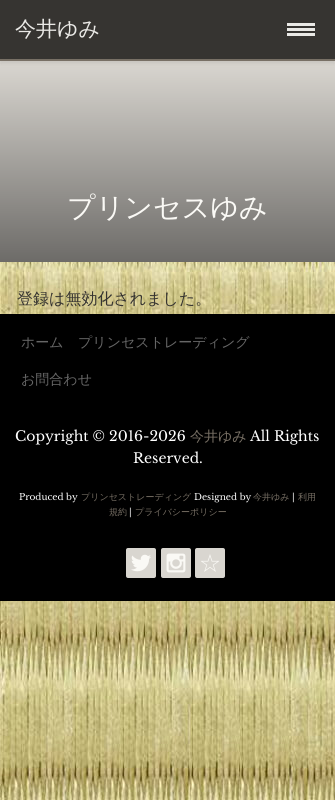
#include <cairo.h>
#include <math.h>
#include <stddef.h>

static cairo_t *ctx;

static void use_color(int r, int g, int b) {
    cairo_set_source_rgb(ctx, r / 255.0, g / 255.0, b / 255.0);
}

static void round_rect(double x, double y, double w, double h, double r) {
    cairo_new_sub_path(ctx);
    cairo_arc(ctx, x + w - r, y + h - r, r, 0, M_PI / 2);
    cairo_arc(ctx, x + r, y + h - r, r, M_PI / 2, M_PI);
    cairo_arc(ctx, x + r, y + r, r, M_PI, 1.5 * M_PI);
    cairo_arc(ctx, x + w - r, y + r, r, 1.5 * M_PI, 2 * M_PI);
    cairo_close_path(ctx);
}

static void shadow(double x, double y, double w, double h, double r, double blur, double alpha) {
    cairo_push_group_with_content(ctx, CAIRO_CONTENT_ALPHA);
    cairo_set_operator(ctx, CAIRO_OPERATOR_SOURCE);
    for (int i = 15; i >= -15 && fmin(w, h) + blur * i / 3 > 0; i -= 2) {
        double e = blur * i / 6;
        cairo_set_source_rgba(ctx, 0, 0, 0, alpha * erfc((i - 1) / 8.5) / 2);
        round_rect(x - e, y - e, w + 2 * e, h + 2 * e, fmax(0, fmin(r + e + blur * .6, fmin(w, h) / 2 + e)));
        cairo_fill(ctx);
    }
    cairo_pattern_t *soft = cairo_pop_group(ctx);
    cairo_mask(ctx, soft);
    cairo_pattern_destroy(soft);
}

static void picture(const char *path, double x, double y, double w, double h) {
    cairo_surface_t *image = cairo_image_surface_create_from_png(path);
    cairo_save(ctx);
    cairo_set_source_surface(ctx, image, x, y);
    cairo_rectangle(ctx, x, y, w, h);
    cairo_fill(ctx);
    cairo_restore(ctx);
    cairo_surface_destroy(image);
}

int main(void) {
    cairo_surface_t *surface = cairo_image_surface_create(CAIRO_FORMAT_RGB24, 335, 800);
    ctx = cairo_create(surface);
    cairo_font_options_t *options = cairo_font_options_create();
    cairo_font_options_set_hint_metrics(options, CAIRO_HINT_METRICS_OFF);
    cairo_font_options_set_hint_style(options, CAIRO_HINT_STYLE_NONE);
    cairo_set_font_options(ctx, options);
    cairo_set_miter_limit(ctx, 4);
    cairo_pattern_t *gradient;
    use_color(255, 255, 255);
    cairo_paint(ctx);
    picture("img1.png", 0, 262, 335, 538);
    use_color(217, 214, 208);
    cairo_rectangle(ctx, 0, 61, 335, 1);
    cairo_fill(ctx);
    gradient = cairo_pattern_create_linear(168, 62, 168, 262);
    cairo_pattern_add_color_stop_rgba(gradient, 0, 0.851, 0.839, 0.816, 1);
    cairo_pattern_add_color_stop_rgba(gradient, 1, 0.427, 0.42, 0.408, 1);
    cairo_set_source(ctx, gradient);
    cairo_pattern_destroy(gradient);
    cairo_rectangle(ctx, 0, 62, 335, 200);
    cairo_fill(ctx);
    use_color(0, 0, 0);
    shadow(0, 2, 335, 61, 0, 2.5, 0.1);
    use_color(54, 52, 49);
    cairo_rectangle(ctx, 0, 0, 335, 59);
    cairo_fill(ctx);
    use_color(120, 112, 101);
    cairo_rectangle(ctx, 0, 59, 335, 2);
    cairo_fill(ctx);
    cairo_select_font_face(ctx, "WenQuanYi Zen Hei Medium", CAIRO_FONT_SLANT_NORMAL, CAIRO_FONT_WEIGHT_NORMAL);
    cairo_set_font_size(ctx, 21);
    use_color(234, 233, 230);
    cairo_move_to(ctx, 15, 36);
    cairo_show_text(ctx, "今井ゆみ");
    cairo_rectangle(ctx, 287, 23, 28, 3);
    cairo_fill(ctx);
    cairo_rectangle(ctx, 287, 28, 28, 3);
    cairo_fill(ctx);
    cairo_rectangle(ctx, 287, 33, 28, 3);
    cairo_fill(ctx);
    cairo_set_font_size(ctx, 28);
    use_color(250, 249, 245);
    cairo_move_to(ctx, 67, 217);
    cairo_show_text(ctx, "プリンセスゆみ");
    cairo_set_font_size(ctx, 16);
    use_color(54, 52, 49);
    cairo_move_to(ctx, 17, 304);
    cairo_show_text(ctx, "登録は無効化されました。");
    use_color(0, 0, 0);
    cairo_rectangle(ctx, 0, 314, 335, 287);
    cairo_fill(ctx);
    cairo_set_font_size(ctx, 14);
    use_color(102, 102, 102);
    cairo_move_to(ctx, 21, 347);
    cairo_show_text(ctx, "ホーム");
    cairo_move_to(ctx, 78, 347);
    cairo_show_text(ctx, "プリンセストレーディング");
    cairo_move_to(ctx, 21, 384);
    cairo_show_text(ctx, "お問合わせ");
    cairo_select_font_face(ctx, "Libre Baskerville", CAIRO_FONT_SLANT_NORMAL, CAIRO_FONT_WEIGHT_NORMAL);
    use_color(255, 255, 255);
    cairo_move_to(ctx, 15, 441);
    cairo_show_text(ctx, "Copyright © 2016-2026");
    cairo_select_font_face(ctx, "WenQuanYi Zen Hei Medium", CAIRO_FONT_SLANT_NORMAL, CAIRO_FONT_WEIGHT_NORMAL);
    use_color(120, 112, 101);
    cairo_move_to(ctx, 190, 441);
    cairo_show_text(ctx, "今井ゆみ");
    cairo_select_font_face(ctx, "Libre Baskerville", CAIRO_FONT_SLANT_NORMAL, CAIRO_FONT_WEIGHT_NORMAL);
    use_color(255, 255, 255);
    cairo_move_to(ctx, 250, 441);
    cairo_show_text(ctx, "All Rights");
    cairo_move_to(ctx, 133, 463);
    cairo_show_text(ctx, "Reserved.");
    cairo_set_font_size(ctx, 9);
    cairo_move_to(ctx, 19, 500);
    cairo_show_text(ctx, "Produced by");
    cairo_select_font_face(ctx, "WenQuanYi Zen Hei Medium", CAIRO_FONT_SLANT_NORMAL, CAIRO_FONT_WEIGHT_NORMAL);
    use_color(120, 112, 101);
    cairo_move_to(ctx, 81, 500);
    cairo_show_text(ctx, "プリンセストレーディング");
    cairo_select_font_face(ctx, "Libre Baskerville", CAIRO_FONT_SLANT_NORMAL, CAIRO_FONT_WEIGHT_NORMAL);
    use_color(255, 255, 255);
    cairo_move_to(ctx, 194, 500);
    cairo_show_text(ctx, "Designed by");
    cairo_select_font_face(ctx, "WenQuanYi Zen Hei Medium", CAIRO_FONT_SLANT_NORMAL, CAIRO_FONT_WEIGHT_NORMAL);
    use_color(120, 112, 101);
    cairo_move_to(ctx, 253, 500);
    cairo_show_text(ctx, "今井ゆみ");
    cairo_select_font_face(ctx, "Libre Baskerville", CAIRO_FONT_SLANT_NORMAL, CAIRO_FONT_WEIGHT_NORMAL);
    use_color(255, 255, 255);
    cairo_move_to(ctx, 292, 500);
    cairo_show_text(ctx, "|");
    cairo_select_font_face(ctx, "WenQuanYi Zen Hei Medium", CAIRO_FONT_SLANT_NORMAL, CAIRO_FONT_WEIGHT_NORMAL);
    use_color(120, 112, 101);
    cairo_move_to(ctx, 298, 500);
    cairo_show_text(ctx, "利用");
    cairo_move_to(ctx, 109, 515);
    cairo_show_text(ctx, "規約");
    cairo_select_font_face(ctx, "Libre Baskerville", CAIRO_FONT_SLANT_NORMAL, CAIRO_FONT_WEIGHT_NORMAL);
    use_color(255, 255, 255);
    cairo_move_to(ctx, 129, 515);
    cairo_show_text(ctx, "|");
    cairo_select_font_face(ctx, "WenQuanYi Zen Hei Medium", CAIRO_FONT_SLANT_NORMAL, CAIRO_FONT_WEIGHT_NORMAL);
    use_color(120, 112, 101);
    cairo_move_to(ctx, 135, 515);
    cairo_show_text(ctx, "プライバシーポリシー");
    use_color(217, 214, 208);
    round_rect(126, 548, 30, 30, 2);
    cairo_fill(ctx);
    picture("img2.png", 131, 554, 20, 18);
    round_rect(161, 548, 30, 30, 2);
    cairo_fill(ctx);
    picture("img3.png", 166, 553, 20, 20);
    round_rect(195, 548, 30, 30, 2);
    cairo_fill(ctx);
    picture("img4.png", 201, 554, 18, 18);
    cairo_surface_write_to_png(surface, "result.png");
    cairo_font_options_destroy(options);
    cairo_destroy(ctx);
    cairo_surface_destroy(surface);
    return 0;
}
